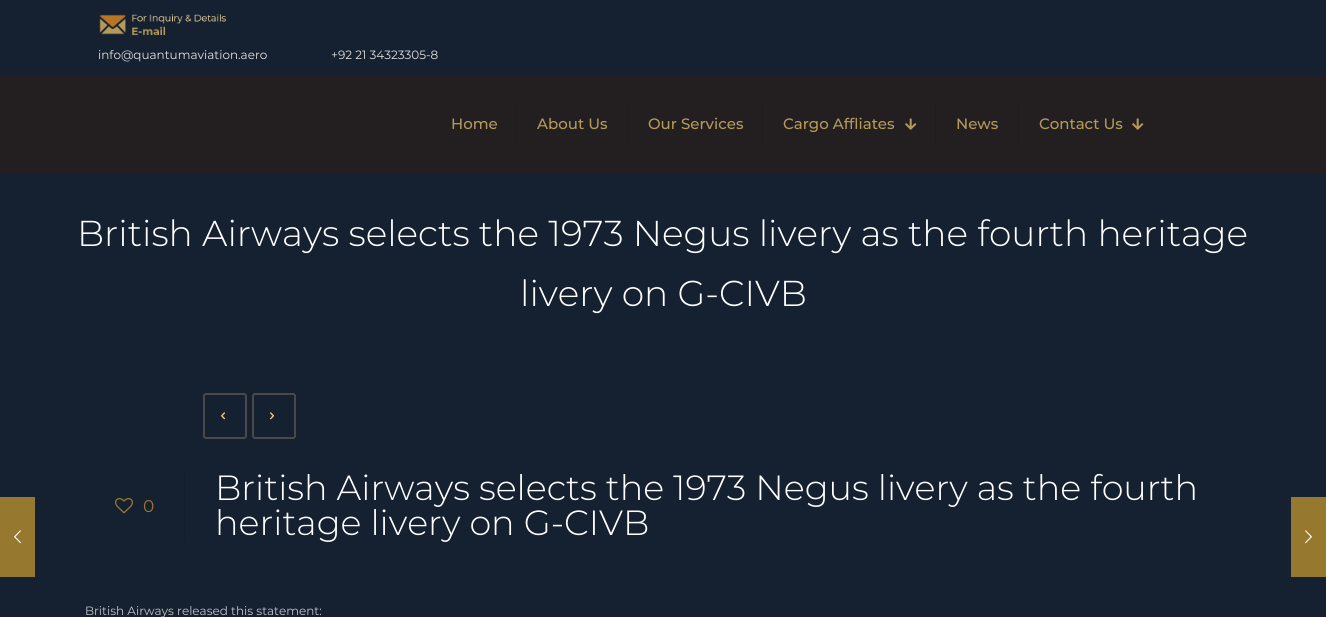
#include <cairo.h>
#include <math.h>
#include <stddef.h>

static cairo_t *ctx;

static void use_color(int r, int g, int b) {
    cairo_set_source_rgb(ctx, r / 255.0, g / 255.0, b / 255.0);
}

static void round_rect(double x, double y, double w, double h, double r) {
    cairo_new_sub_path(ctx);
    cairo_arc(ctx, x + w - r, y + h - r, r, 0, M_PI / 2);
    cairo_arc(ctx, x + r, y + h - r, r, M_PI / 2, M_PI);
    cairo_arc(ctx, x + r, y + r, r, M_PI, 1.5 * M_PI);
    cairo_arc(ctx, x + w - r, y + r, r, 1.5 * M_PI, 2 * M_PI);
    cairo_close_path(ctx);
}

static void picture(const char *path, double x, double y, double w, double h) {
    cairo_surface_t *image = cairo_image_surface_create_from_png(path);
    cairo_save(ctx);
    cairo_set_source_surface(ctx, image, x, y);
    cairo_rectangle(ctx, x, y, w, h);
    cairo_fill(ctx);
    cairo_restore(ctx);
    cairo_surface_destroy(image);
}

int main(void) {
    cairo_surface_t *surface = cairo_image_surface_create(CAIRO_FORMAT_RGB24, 1326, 617);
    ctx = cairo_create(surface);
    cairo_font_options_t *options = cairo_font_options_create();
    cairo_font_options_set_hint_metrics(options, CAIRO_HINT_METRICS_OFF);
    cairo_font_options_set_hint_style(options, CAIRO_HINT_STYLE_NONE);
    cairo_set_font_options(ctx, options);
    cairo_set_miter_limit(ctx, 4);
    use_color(21, 32, 48);
    cairo_paint(ctx);
    use_color(151, 120, 47);
    cairo_rectangle(ctx, 0, 497, 35, 80);
    cairo_fill(ctx);
    picture("img1.png", 14, 530, 7, 14);
    picture("img2.png", 99, 14, 127, 21);
    cairo_select_font_face(ctx, "Montserrat", CAIRO_FONT_SLANT_NORMAL, CAIRO_FONT_WEIGHT_NORMAL);
    cairo_set_font_size(ctx, 12);
    use_color(226, 226, 226);
    cairo_move_to(ctx, 98, 59);
    cairo_show_text(ctx, "info@quantumaviation.aero");
    cairo_move_to(ctx, 331, 59);
    cairo_show_text(ctx, "+92 21 34323305-8");
    use_color(35, 31, 32);
    cairo_rectangle(ctx, 0, 76, 1326, 97);
    cairo_fill(ctx);
    cairo_select_font_face(ctx, "Montserrat Medium", CAIRO_FONT_SLANT_NORMAL, CAIRO_FONT_WEIGHT_NORMAL);
    cairo_set_font_size(ctx, 15);
    use_color(181, 154, 90);
    cairo_move_to(ctx, 451, 129);
    cairo_show_text(ctx, "Home");
    use_color(30, 27, 33);
    cairo_rectangle(ctx, 516, 105, 1, 38);
    cairo_fill(ctx);
    use_color(181, 154, 90);
    cairo_move_to(ctx, 537, 129);
    cairo_show_text(ctx, "About Us");
    use_color(30, 27, 33);
    cairo_rectangle(ctx, 627, 105, 1, 38);
    cairo_fill(ctx);
    use_color(181, 154, 90);
    cairo_move_to(ctx, 648, 129);
    cairo_show_text(ctx, "Our Services");
    use_color(30, 27, 33);
    cairo_rectangle(ctx, 762, 105, 1, 38);
    cairo_fill(ctx);
    use_color(181, 154, 90);
    cairo_move_to(ctx, 783, 129);
    cairo_show_text(ctx, "Cargo Affliates");
    picture("img3.png", 905, 118, 12, 12);
    use_color(30, 27, 33);
    cairo_rectangle(ctx, 935, 105, 1, 38);
    cairo_fill(ctx);
    use_color(181, 154, 90);
    cairo_move_to(ctx, 956, 129);
    cairo_show_text(ctx, "News");
    use_color(30, 27, 33);
    cairo_rectangle(ctx, 1018, 105, 1, 38);
    cairo_fill(ctx);
    use_color(181, 154, 90);
    cairo_move_to(ctx, 1039, 129);
    cairo_show_text(ctx, "Contact Us");
    picture("img3.png", 1132, 118, 12, 12);
    cairo_select_font_face(ctx, "Montserrat Light", CAIRO_FONT_SLANT_NORMAL, CAIRO_FONT_WEIGHT_NORMAL);
    cairo_set_font_size(ctx, 36);
    use_color(255, 255, 255);
    cairo_move_to(ctx, 77, 246);
    cairo_show_text(ctx, "British Airways selects the 1973 Negus livery as the fourth heritage");
    cairo_move_to(ctx, 520, 306);
    cairo_show_text(ctx, "livery on G-CIVB");
    round_rect(204, 394, 42, 44, 2);
    use_color(73, 73, 73);
    cairo_stroke(ctx);
    picture("img4.png", 221, 412, 4, 8);
    round_rect(253, 394, 42, 44, 2);
    cairo_stroke(ctx);
    picture("img5.png", 270, 412, 4, 8);
    picture("img6.png", 115, 498, 18, 16);
    cairo_select_font_face(ctx, "Montserrat", CAIRO_FONT_SLANT_NORMAL, CAIRO_FONT_WEIGHT_NORMAL);
    cairo_set_font_size(ctx, 17);
    use_color(151, 120, 47);
    cairo_move_to(ctx, 143, 512);
    cairo_show_text(ctx, "0");
    use_color(19, 29, 44);
    cairo_rectangle(ctx, 184, 470, 1, 70);
    cairo_fill(ctx);
    cairo_select_font_face(ctx, "Montserrat Light", CAIRO_FONT_SLANT_NORMAL, CAIRO_FONT_WEIGHT_NORMAL);
    cairo_set_font_size(ctx, 35);
    use_color(255, 255, 255);
    cairo_move_to(ctx, 215, 500);
    cairo_show_text(ctx, "British Airways selects the 1973 Negus livery as the fourth");
    cairo_move_to(ctx, 215, 535);
    cairo_show_text(ctx, "heritage livery on G-CIVB");
    cairo_select_font_face(ctx, "Montserrat", CAIRO_FONT_SLANT_NORMAL, CAIRO_FONT_WEIGHT_NORMAL);
    cairo_set_font_size(ctx, 12);
    use_color(196, 196, 196);
    cairo_move_to(ctx, 85, 615);
    cairo_show_text(ctx, "British Airways released this statement:");
    use_color(151, 120, 47);
    cairo_rectangle(ctx, 1291, 497, 35, 80);
    cairo_fill(ctx);
    picture("img7.png", 1305, 530, 7, 14);
    cairo_surface_write_to_png(surface, "result.png");
    cairo_font_options_destroy(options);
    cairo_destroy(ctx);
    cairo_surface_destroy(surface);
    return 0;
}
